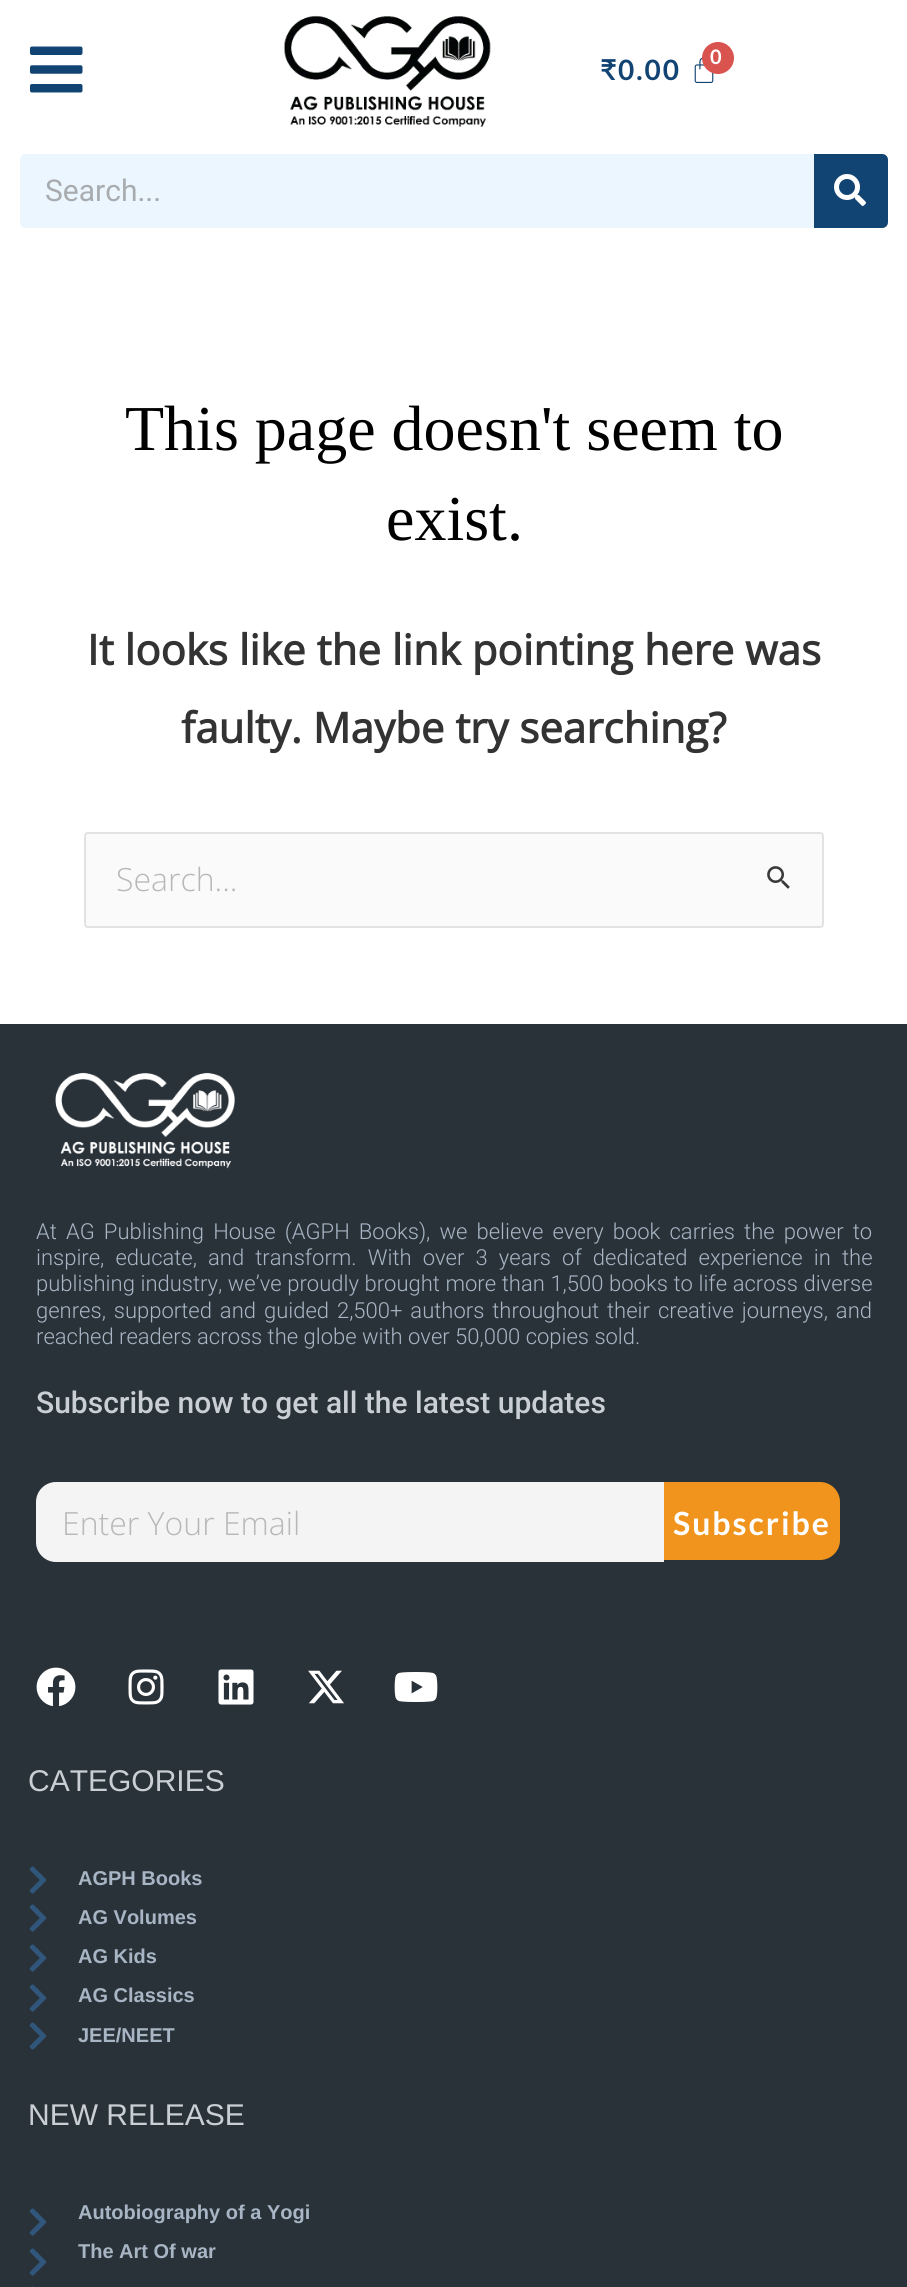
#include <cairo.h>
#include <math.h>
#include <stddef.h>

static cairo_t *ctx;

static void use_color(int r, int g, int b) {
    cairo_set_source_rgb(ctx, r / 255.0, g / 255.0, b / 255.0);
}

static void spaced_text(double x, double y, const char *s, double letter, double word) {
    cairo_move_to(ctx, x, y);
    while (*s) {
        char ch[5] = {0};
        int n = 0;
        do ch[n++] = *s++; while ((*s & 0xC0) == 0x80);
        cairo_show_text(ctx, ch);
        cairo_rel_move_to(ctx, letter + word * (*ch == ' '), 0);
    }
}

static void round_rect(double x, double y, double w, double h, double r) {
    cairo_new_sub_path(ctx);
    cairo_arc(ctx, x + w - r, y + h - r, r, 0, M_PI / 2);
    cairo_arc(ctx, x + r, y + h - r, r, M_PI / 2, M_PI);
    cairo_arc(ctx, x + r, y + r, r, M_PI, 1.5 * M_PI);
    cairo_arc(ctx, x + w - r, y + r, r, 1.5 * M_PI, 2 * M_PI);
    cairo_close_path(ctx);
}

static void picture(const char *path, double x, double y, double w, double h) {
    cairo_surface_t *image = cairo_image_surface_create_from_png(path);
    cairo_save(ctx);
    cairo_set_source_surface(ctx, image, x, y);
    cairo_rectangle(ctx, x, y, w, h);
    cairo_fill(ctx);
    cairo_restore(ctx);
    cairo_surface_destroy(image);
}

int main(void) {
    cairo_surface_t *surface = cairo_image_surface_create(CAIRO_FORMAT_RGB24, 907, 2287);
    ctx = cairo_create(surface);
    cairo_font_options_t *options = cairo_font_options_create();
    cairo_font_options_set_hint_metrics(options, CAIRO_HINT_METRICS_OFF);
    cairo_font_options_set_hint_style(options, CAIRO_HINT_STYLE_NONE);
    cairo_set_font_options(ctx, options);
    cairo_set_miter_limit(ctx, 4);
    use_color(255, 255, 255);
    cairo_paint(ctx);
    picture("img1.png", 30, 46, 53, 47);
    picture("img2.png", 283, 15, 208, 112);
    picture("img3.png", 694, 57, 20, 26);
    use_color(217, 83, 79);
    cairo_arc(ctx, 718, 58, 16, 0, 2 * M_PI);
    cairo_fill(ctx);
    cairo_select_font_face(ctx, "Lato", CAIRO_FONT_SLANT_NORMAL, CAIRO_FONT_WEIGHT_BOLD);
    cairo_set_font_size(ctx, 20);
    use_color(255, 255, 255);
    spaced_text(710, 64, "0", 2, 0);
    cairo_select_font_face(ctx, "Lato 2", CAIRO_FONT_SLANT_NORMAL, CAIRO_FONT_WEIGHT_BOLD);
    cairo_set_font_size(ctx, 28);
    use_color(18, 68, 115);
    spaced_text(600, 80, "₹", 2, 0);
    cairo_select_font_face(ctx, "Lato", CAIRO_FONT_SLANT_NORMAL, CAIRO_FONT_WEIGHT_BOLD);
    spaced_text(618, 80, "0.00", 2, 0);
    use_color(236, 246, 255);
    round_rect(20, 154, 868, 74, 6);
    cairo_fill(ctx);
    cairo_select_font_face(ctx, "Roboto", CAIRO_FONT_SLANT_NORMAL, CAIRO_FONT_WEIGHT_NORMAL);
    cairo_set_font_size(ctx, 30);
    use_color(168, 172, 175);
    cairo_move_to(ctx, 45, 201);
    cairo_show_text(ctx, "Search...");
    use_color(18, 68, 115);
    cairo_new_path(ctx);
    cairo_move_to(ctx, 814, 154);
    cairo_line_to(ctx, 882, 154);
    cairo_curve_to(ctx, 885.5, 154, 888, 156.5, 888, 160);
    cairo_line_to(ctx, 888, 222);
    cairo_curve_to(ctx, 888, 225.5, 885.5, 228, 882, 228);
    cairo_line_to(ctx, 814, 228);
    cairo_close_path(ctx);
    cairo_fill(ctx);
    picture("img4.png", 834, 174, 32, 32);
    cairo_select_font_face(ctx, "Liberation Serif", CAIRO_FONT_SLANT_NORMAL, CAIRO_FONT_WEIGHT_NORMAL);
    cairo_set_font_size(ctx, 64);
    use_color(0, 0, 0);
    cairo_move_to(ctx, 125, 450);
    cairo_show_text(ctx, "This page doesn't seem to");
    cairo_move_to(ctx, 386, 540);
    cairo_show_text(ctx, "exist.");
    cairo_select_font_face(ctx, "Open Sans", CAIRO_FONT_SLANT_NORMAL, CAIRO_FONT_WEIGHT_BOLD);
    cairo_set_font_size(ctx, 42);
    use_color(51, 51, 51);
    cairo_move_to(ctx, 87, 665);
    cairo_show_text(ctx, "It looks like the link pointing here was");
    cairo_move_to(ctx, 181, 743);
    cairo_show_text(ctx, "faulty. Maybe try searching?");
    use_color(250, 250, 250);
    round_rect(85, 833, 738, 94, 3);
    cairo_fill_preserve(ctx);
    use_color(226, 226, 226);
    cairo_stroke(ctx);
    cairo_select_font_face(ctx, "Open Sans Light", CAIRO_FONT_SLANT_NORMAL, CAIRO_FONT_WEIGHT_NORMAL);
    cairo_set_font_size(ctx, 32);
    use_color(184, 184, 184);
    cairo_move_to(ctx, 116, 891);
    cairo_show_text(ctx, "Search...");
    picture("img5.png", 767, 866, 23, 23);
    use_color(42, 50, 57);
    cairo_rectangle(ctx, 0, 1024, 907, 1263);
    cairo_fill(ctx);
    picture("img6.png", 55, 1072, 180, 97);
    cairo_select_font_face(ctx, "Roboto Light", CAIRO_FONT_SLANT_NORMAL, CAIRO_FONT_WEIGHT_NORMAL);
    cairo_set_font_size(ctx, 22);
    use_color(167, 181, 196);
    spaced_text(36, 1239, "At AG Publishing House (AGPH Books), we believe every book carries the power to", 0, 3.75);
    spaced_text(36, 1265, "inspire, educate, and transform. With over 3 years of dedicated experience in the", 0, 5.75);
    spaced_text(36, 1291, "publishing industry, we’ve proudly brought more than 1,500 books to life across diverse", 0, 0.25);
    spaced_text(36, 1318, "genres, supported and guided 2,500+ authors throughout their creative journeys, and", 0, 2.6);
    cairo_move_to(ctx, 36, 1344);
    cairo_show_text(ctx, "reached readers across the globe with over 50,000 copies sold.");
    cairo_select_font_face(ctx, "Roboto Medium", CAIRO_FONT_SLANT_NORMAL, CAIRO_FONT_WEIGHT_NORMAL);
    cairo_set_font_size(ctx, 30);
    use_color(201, 207, 212);
    cairo_move_to(ctx, 36, 1413);
    cairo_show_text(ctx, "Subscribe now to get all the latest updates");
    use_color(244, 244, 244);
    cairo_new_path(ctx);
    cairo_move_to(ctx, 56, 1482);
    cairo_line_to(ctx, 664, 1482);
    cairo_line_to(ctx, 664, 1562);
    cairo_line_to(ctx, 56, 1562);
    cairo_curve_to(ctx, 45, 1562, 36, 1553, 36, 1542);
    cairo_line_to(ctx, 36, 1502);
    cairo_curve_to(ctx, 36, 1491, 45, 1482, 56, 1482);
    cairo_close_path(ctx);
    cairo_fill(ctx);
    cairo_select_font_face(ctx, "Open Sans Light", CAIRO_FONT_SLANT_NORMAL, CAIRO_FONT_WEIGHT_NORMAL);
    cairo_set_font_size(ctx, 32);
    use_color(184, 184, 184);
    cairo_move_to(ctx, 62, 1535);
    cairo_show_text(ctx, "Enter Your Email");
    use_color(241, 148, 29);
    cairo_new_path(ctx);
    cairo_move_to(ctx, 664, 1482);
    cairo_line_to(ctx, 820, 1482);
    cairo_curve_to(ctx, 831, 1482, 840, 1491, 840, 1502);
    cairo_line_to(ctx, 840, 1540);
    cairo_curve_to(ctx, 840, 1551, 831, 1560, 820, 1560);
    cairo_line_to(ctx, 664, 1560);
    cairo_close_path(ctx);
    cairo_fill(ctx);
    cairo_select_font_face(ctx, "Lato", CAIRO_FONT_SLANT_NORMAL, CAIRO_FONT_WEIGHT_BOLD);
    use_color(255, 255, 255);
    spaced_text(673, 1535, "Subscribe", 2, 0);
    picture("img7.png", 36, 1667, 40, 40);
    picture("img8.png", 128, 1669, 36, 36);
    picture("img9.png", 218, 1669, 36, 36);
    picture("img10.png", 308, 1670, 36, 34);
    picture("img11.png", 394, 1672, 44, 30);
    cairo_select_font_face(ctx, "Liberation Sans", CAIRO_FONT_SLANT_NORMAL, CAIRO_FONT_WEIGHT_NORMAL);
    cairo_set_font_size(ctx, 30);
    use_color(201, 207, 212);
    cairo_move_to(ctx, 28, 1791);
    cairo_show_text(ctx, "CATEGORIES");
    picture("img12.png", 29, 1866, 18, 28);
    cairo_select_font_face(ctx, "Liberation Sans", CAIRO_FONT_SLANT_NORMAL, CAIRO_FONT_WEIGHT_BOLD);
    cairo_set_font_size(ctx, 20);
    use_color(167, 181, 196);
    cairo_move_to(ctx, 78, 1885);
    cairo_show_text(ctx, "AGPH Books");
    picture("img12.png", 29, 1904, 18, 28);
    cairo_move_to(ctx, 78, 1924);
    cairo_show_text(ctx, "AG Volumes");
    picture("img12.png", 29, 1944, 18, 28);
    cairo_move_to(ctx, 78, 1963);
    cairo_show_text(ctx, "AG Kids");
    picture("img12.png", 29, 1984, 18, 28);
    cairo_move_to(ctx, 78, 2002);
    cairo_show_text(ctx, "AG Classics");
    picture("img12.png", 29, 2022, 18, 28);
    cairo_move_to(ctx, 78, 2042);
    cairo_show_text(ctx, "JEE/NEET");
    cairo_select_font_face(ctx, "Liberation Sans", CAIRO_FONT_SLANT_NORMAL, CAIRO_FONT_WEIGHT_NORMAL);
    cairo_set_font_size(ctx, 30);
    use_color(201, 207, 212);
    cairo_move_to(ctx, 28, 2125);
    cairo_show_text(ctx, "NEW RELEASE");
    picture("img12.png", 29, 2208, 18, 28);
    cairo_select_font_face(ctx, "Liberation Sans", CAIRO_FONT_SLANT_NORMAL, CAIRO_FONT_WEIGHT_BOLD);
    cairo_set_font_size(ctx, 20);
    use_color(167, 181, 196);
    cairo_move_to(ctx, 78, 2219);
    cairo_show_text(ctx, "Autobiography of a Yogi");
    picture("img12.png", 29, 2248, 18, 28);
    cairo_move_to(ctx, 78, 2258);
    cairo_show_text(ctx, "The Art Of war");
    picture("img13.png", 31, 2286, 3, 1);
    cairo_surface_write_to_png(surface, "result.png");
    cairo_font_options_destroy(options);
    cairo_destroy(ctx);
    cairo_surface_destroy(surface);
    return 0;
}
